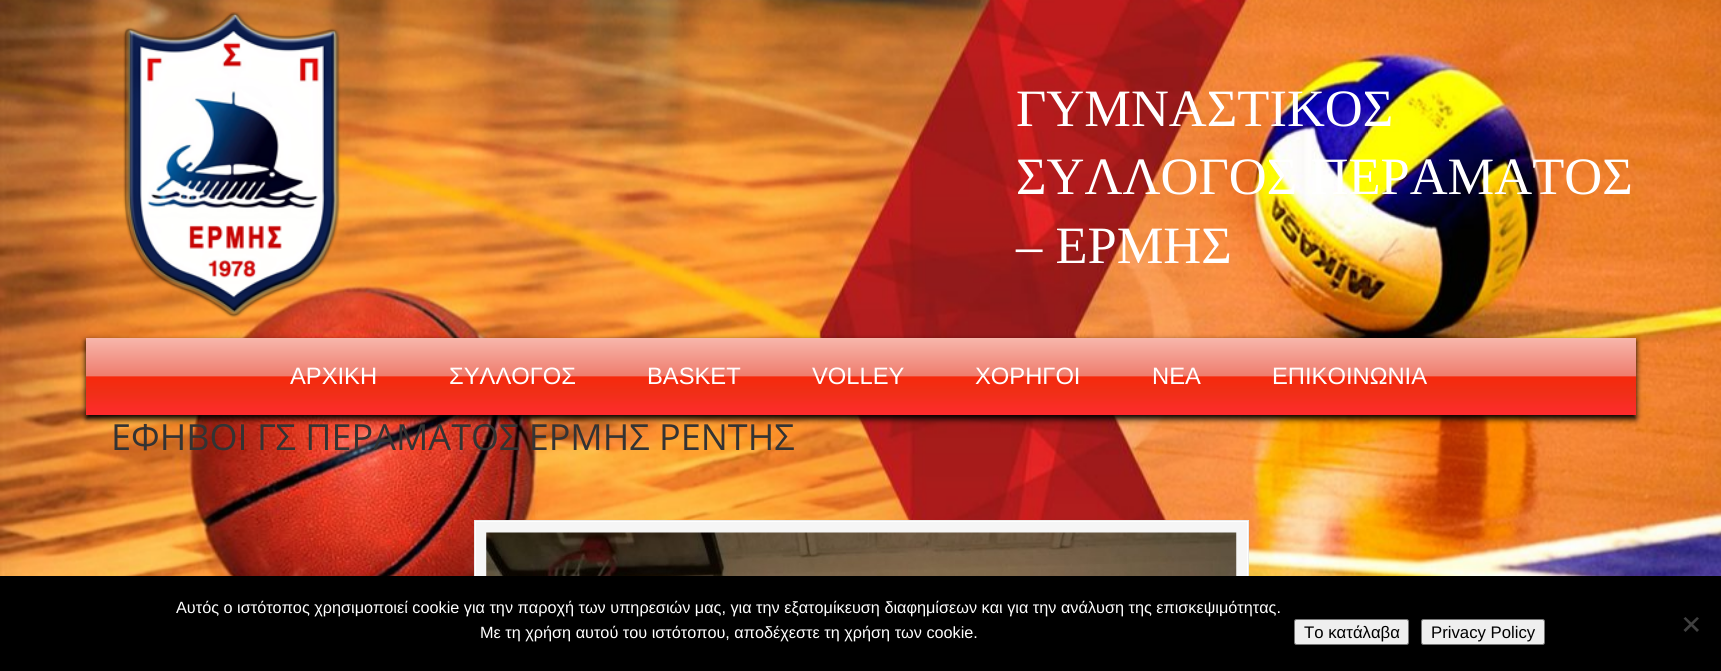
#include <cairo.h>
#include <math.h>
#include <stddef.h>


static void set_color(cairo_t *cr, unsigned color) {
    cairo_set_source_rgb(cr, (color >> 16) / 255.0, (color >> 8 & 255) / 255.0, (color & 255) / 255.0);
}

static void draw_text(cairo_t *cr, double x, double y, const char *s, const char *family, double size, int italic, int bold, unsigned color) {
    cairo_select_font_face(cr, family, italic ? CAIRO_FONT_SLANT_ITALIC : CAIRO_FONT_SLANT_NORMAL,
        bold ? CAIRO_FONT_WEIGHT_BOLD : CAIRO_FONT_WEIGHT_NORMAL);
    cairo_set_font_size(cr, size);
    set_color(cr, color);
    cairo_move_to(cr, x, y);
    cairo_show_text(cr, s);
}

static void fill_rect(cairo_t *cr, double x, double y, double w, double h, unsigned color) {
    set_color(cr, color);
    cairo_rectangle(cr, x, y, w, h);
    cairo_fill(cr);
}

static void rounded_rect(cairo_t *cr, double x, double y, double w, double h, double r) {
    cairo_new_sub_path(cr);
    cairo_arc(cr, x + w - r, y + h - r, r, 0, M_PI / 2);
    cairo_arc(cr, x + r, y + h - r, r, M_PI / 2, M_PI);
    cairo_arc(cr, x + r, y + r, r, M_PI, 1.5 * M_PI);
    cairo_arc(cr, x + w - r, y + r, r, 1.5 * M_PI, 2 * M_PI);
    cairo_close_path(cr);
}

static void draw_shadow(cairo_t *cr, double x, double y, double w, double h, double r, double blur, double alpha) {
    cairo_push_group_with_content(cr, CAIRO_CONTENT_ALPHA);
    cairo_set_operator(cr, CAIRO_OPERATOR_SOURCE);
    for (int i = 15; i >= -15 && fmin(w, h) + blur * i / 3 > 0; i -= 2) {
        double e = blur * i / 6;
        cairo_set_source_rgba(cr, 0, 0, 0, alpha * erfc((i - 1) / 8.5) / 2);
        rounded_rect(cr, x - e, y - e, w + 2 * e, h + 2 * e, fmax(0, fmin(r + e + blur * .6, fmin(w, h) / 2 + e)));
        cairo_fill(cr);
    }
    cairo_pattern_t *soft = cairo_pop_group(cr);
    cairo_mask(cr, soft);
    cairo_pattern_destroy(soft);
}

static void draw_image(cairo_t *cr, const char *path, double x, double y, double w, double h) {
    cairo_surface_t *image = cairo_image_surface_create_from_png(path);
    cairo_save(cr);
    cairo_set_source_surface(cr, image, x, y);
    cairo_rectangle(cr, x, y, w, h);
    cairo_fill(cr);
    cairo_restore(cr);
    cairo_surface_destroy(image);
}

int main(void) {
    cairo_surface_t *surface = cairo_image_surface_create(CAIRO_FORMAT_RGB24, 1721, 671);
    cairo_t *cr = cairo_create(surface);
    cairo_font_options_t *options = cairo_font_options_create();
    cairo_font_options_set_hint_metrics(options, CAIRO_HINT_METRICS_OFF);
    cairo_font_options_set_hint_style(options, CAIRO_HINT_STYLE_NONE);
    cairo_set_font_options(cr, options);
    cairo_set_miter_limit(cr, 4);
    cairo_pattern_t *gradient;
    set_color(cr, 0xFFFFFF);
    cairo_paint(cr);
    draw_image(cr, "assets/img1.png", 0, 0, 1721, 576);
    draw_image(cr, "assets/img2.png", 123, 12, 218, 306);
    draw_text(cr, 1016, 126, "ΓΥΜΝΑΣΤΙΚΟΣ", "Liberation Serif", 52.5, 0, 0, 0xFFFFFF);
    draw_text(cr, 1016, 194, "ΣΥΛΛΟΓΟΣ ΠΕΡΑΜΑΤΟΣ", "Liberation Serif", 52.5, 0, 0, 0xFFFFFF);
    draw_text(cr, 1016, 263, "– ΕΡΜΗΣ", "Liberation Serif", 52.5, 0, 0, 0xFFFFFF);
    set_color(cr, 0x000000);
    draw_shadow(cr, 86, 341, 1550, 78, 0, 3, 1);
    gradient = cairo_pattern_create_linear(861, 337, 861, 415);
    cairo_pattern_add_color_stop_rgba(gradient, 0, 0.969, 0.722, 0.678, 1);
    cairo_pattern_add_color_stop_rgba(gradient, 0.5, 0.937, 0.49, 0.431, 1);
    cairo_pattern_add_color_stop_rgba(gradient, 0.51, 0.965, 0.161, 0.047, 1);
    cairo_pattern_add_color_stop_rgba(gradient, 0.71, 0.941, 0.184, 0.09, 1);
    cairo_pattern_add_color_stop_rgba(gradient, 1, 1, 0.169, 0.18, 1);
    cairo_set_source(cr, gradient);
    cairo_pattern_destroy(gradient);
    cairo_rectangle(cr, 86, 338, 1550, 77);
    cairo_fill(cr);
    draw_text(cr, 290, 384, "ΑΡΧΙΚΗ", "Liberation Sans", 23.75, 0, 0, 0xFFFFFF);
    draw_text(cr, 449, 384, "ΣΥΛΛΟΓΟΣ", "Liberation Sans", 23.75, 0, 0, 0xFFFFFF);
    draw_text(cr, 647, 384, "BASKET", "Liberation Sans", 23.75, 0, 0, 0xFFFFFF);
    draw_text(cr, 812, 384, "VOLLEY", "Liberation Sans", 23.75, 0, 0, 0xFFFFFF);
    draw_text(cr, 975, 384, "ΧΟΡΗΓΟΙ", "Liberation Sans", 23.75, 0, 0, 0xFFFFFF);
    draw_text(cr, 1152, 384, "ΝΕΑ", "Liberation Sans", 23.75, 0, 0, 0xFFFFFF);
    draw_text(cr, 1272, 384, "ΕΠΙΚΟΙΝΩΝΙΑ", "Liberation Sans", 23.75, 0, 0, 0xFFFFFF);
    draw_text(cr, 111, 450, "ΕΦΗΒΟΙ ΓΣ ΠΕΡΑΜΑΤΟΣ ΕΡΜΗΣ ΡΕΝΤΗΣ", "Open Sans", 36, 0, 0, 0x333333);
    fill_rect(cr, 476, 522, 771, 54, 0xF6F6F6);
    cairo_rectangle(cr, 474.5, 520.5, 774, 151);
    set_color(cr, 0xEAEAEA);
    cairo_set_line_width(cr, 1);
    cairo_stroke(cr);
    cairo_rectangle(cr, 475.5, 521.5, 772, 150);
    set_color(cr, 0xFFFFFF);
    cairo_stroke(cr);
    draw_image(cr, "assets/img3.png", 486, 532, 751, 44);
    fill_rect(cr, 0, 576, 1721, 95, 0x000000);
    draw_text(cr, 176, 613, "Αυτός ο ιστότοπος χρησιμοποιεί cookie για την παροχή των υπηρεσιών μας, για την εξατομίκευση διαφημίσεων και για την ανάλυση της επισκεψιμότητας.", "Liberation Sans", 16.25, 0, 0, 0xFFFFFF);
    draw_text(cr, 480, 638, "Με τη χρήση αυτού του ιστότοπου, αποδέχεστε τη χρήση των cookie.", "Liberation Sans", 16.25, 0, 0, 0xFFFFFF);
    set_color(cr, 0xEFEFEF);
    rounded_rect(cr, 1294.5, 619.5, 114, 25, 2);
    cairo_fill_preserve(cr);
    set_color(cr, 0x767676);
    cairo_stroke(cr);
    draw_text(cr, 1304, 638, "Το κατάλαβα", "Liberation Sans", 16.75, 0, 0, 0x000000);
    set_color(cr, 0xEFEFEF);
    rounded_rect(cr, 1421.5, 619.5, 123, 25, 2);
    cairo_fill_preserve(cr);
    set_color(cr, 0x767676);
    cairo_stroke(cr);
    draw_text(cr, 1431, 638, "Privacy Policy", "Liberation Sans", 16.75, 0, 0, 0x000000);
    set_color(cr, 0x404040);
    cairo_new_path(cr);
    cairo_move_to(cr, 1697, 617);
    cairo_line_to(cr, 1699, 618.5);
    cairo_line_to(cr, 1685.5, 632);
    cairo_line_to(cr, 1683.5, 630);
    cairo_close_path(cr);
    cairo_fill(cr);
    cairo_new_path(cr);
    cairo_move_to(cr, 1683.5, 618.5);
    cairo_line_to(cr, 1685.5, 617);
    cairo_line_to(cr, 1699, 630);
    cairo_line_to(cr, 1697, 632);
    cairo_close_path(cr);
    cairo_fill(cr);
    cairo_surface_write_to_png(surface, "output.png");
    cairo_font_options_destroy(options);
    cairo_destroy(cr);
    cairo_surface_destroy(surface);
    return 0;
}
